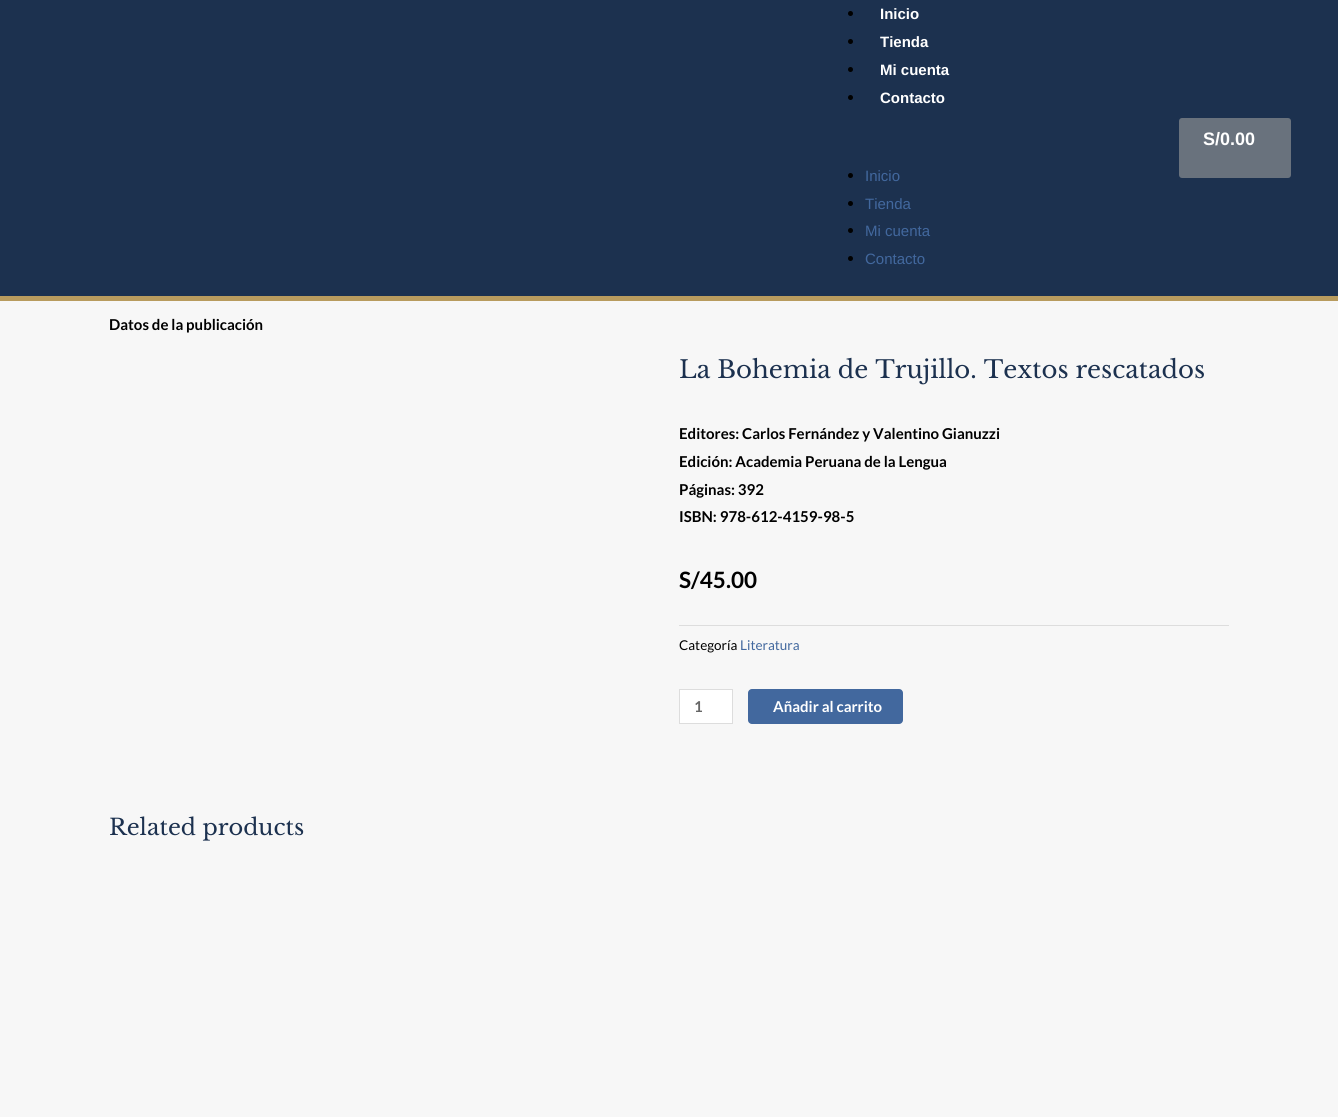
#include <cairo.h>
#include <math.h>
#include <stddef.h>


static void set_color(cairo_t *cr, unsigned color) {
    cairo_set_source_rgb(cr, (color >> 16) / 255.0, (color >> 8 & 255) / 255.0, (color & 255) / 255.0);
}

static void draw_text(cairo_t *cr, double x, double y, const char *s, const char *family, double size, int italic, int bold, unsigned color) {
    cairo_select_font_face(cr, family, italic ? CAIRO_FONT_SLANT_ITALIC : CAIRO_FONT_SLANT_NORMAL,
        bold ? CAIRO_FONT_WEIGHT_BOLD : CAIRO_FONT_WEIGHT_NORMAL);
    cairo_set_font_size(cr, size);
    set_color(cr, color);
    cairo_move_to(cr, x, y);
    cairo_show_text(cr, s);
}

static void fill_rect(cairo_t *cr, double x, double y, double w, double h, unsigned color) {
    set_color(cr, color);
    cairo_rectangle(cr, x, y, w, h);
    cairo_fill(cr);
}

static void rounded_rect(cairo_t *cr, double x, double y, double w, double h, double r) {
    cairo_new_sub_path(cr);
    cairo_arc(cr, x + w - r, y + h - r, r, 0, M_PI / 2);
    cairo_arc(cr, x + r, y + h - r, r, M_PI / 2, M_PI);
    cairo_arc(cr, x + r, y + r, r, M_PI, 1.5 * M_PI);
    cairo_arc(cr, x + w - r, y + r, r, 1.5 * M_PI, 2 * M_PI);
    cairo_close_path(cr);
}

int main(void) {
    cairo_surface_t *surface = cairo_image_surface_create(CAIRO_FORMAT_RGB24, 1338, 1117);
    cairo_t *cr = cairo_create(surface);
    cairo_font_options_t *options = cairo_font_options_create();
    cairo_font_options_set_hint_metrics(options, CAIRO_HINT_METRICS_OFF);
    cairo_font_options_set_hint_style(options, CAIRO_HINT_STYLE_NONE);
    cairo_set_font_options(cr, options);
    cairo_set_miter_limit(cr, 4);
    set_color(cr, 0xF7F7F7);
    cairo_paint(cr);
    fill_rect(cr, 0, 0, 1338, 296, 0x1C314F);
    fill_rect(cr, 0, 296, 1338, 5, 0xB89B5E);
    set_color(cr, 0x000000);
    cairo_arc(cr, 850.5, 13.5, 2.5, 0, 2 * M_PI);
    cairo_fill(cr);
    draw_text(cr, 880, 19, "Inicio", "Liberation Sans", 15, 0, 1, 0xFFFFFF);
    set_color(cr, 0x000000);
    cairo_new_path(cr);
    cairo_arc(cr, 850.5, 41.5, 2.5, 0, 2 * M_PI);
    cairo_fill(cr);
    draw_text(cr, 880, 47, "Tienda", "Liberation Sans", 15, 0, 1, 0xFFFFFF);
    set_color(cr, 0x000000);
    cairo_new_path(cr);
    cairo_arc(cr, 850.5, 69.5, 2.5, 0, 2 * M_PI);
    cairo_fill(cr);
    draw_text(cr, 880, 75, "Mi cuenta", "Liberation Sans", 15, 0, 1, 0xFFFFFF);
    set_color(cr, 0x000000);
    cairo_new_path(cr);
    cairo_arc(cr, 850.5, 97.5, 2.5, 0, 2 * M_PI);
    cairo_fill(cr);
    draw_text(cr, 880, 103, "Contacto", "Liberation Sans", 15, 0, 1, 0xFFFFFF);
    set_color(cr, 0x000000);
    cairo_new_path(cr);
    cairo_arc(cr, 850.5, 175.5, 2.5, 0, 2 * M_PI);
    cairo_fill(cr);
    draw_text(cr, 865, 181, "Inicio", "Liberation Sans", 15, 0, 0, 0x42689E);
    set_color(cr, 0x000000);
    cairo_new_path(cr);
    cairo_arc(cr, 850.5, 203.5, 2.5, 0, 2 * M_PI);
    cairo_fill(cr);
    draw_text(cr, 865, 209, "Tienda", "Liberation Sans", 15, 0, 0, 0x42689E);
    set_color(cr, 0x000000);
    cairo_new_path(cr);
    cairo_arc(cr, 850.5, 230.5, 2.5, 0, 2 * M_PI);
    cairo_fill(cr);
    draw_text(cr, 865, 236, "Mi cuenta", "Liberation Sans", 15, 0, 0, 0x42689E);
    set_color(cr, 0x000000);
    cairo_new_path(cr);
    cairo_arc(cr, 850.5, 258.5, 2.5, 0, 2 * M_PI);
    cairo_fill(cr);
    draw_text(cr, 865, 264, "Contacto", "Liberation Sans", 15, 0, 0, 0x42689E);
    set_color(cr, 0x69727D);
    rounded_rect(cr, 1179, 118, 112, 60, 3);
    cairo_fill(cr);
    draw_text(cr, 1203, 145, "S/0.00", "Liberation Sans", 18, 0, 1, 0xFFFFFF);
    draw_text(cr, 109, 330, "Datos de la publicación", "Lato", 15, 0, 1, 0x000000);
    draw_text(cr, 679, 378, "La Bohemia de Trujillo. Textos rescatados", "Libre Baskerville", 24.4, 0, 0, 0x1C314F);
    draw_text(cr, 679, 439, "Editores: Carlos Fernández y Valentino Gianuzzi", "Lato", 15, 0, 1, 0x000000);
    draw_text(cr, 679, 467, "Edición: Academia Peruana de la Lengua", "Lato", 15, 0, 1, 0x000000);
    draw_text(cr, 679, 495, "Páginas: 392", "Lato", 15, 0, 1, 0x000000);
    draw_text(cr, 679, 522, "ISBN: 978-612-4159-98-5", "Lato", 15, 0, 1, 0x000000);
    draw_text(cr, 679, 588, "S/45.00", "Lato", 22.5, 0, 1, 0x000000);
    fill_rect(cr, 679, 625, 550, 1, 0xDDDDDD);
    draw_text(cr, 679, 650, "Categoría", "Lato", 13.5, 0, 0, 0x000000);
    draw_text(cr, 740, 650, "Literatura", "Lato", 13.5, 0, 0, 0x42689E);
    set_color(cr, 0xFFFFFF);
    cairo_rectangle(cr, 679.5, 689.5, 53, 34);
    cairo_fill_preserve(cr);
    set_color(cr, 0xDDDDDD);
    cairo_set_line_width(cr, 1);
    cairo_stroke(cr);
    draw_text(cr, 694, 712, "1", "Lato", 15, 0, 1, 0x666666);
    set_color(cr, 0x42689E);
    rounded_rect(cr, 748, 689, 155, 35, 4);
    cairo_fill(cr);
    draw_text(cr, 773, 712, "Añadir al carrito", "Lato", 15, 0, 1, 0xFFFFFF);
    draw_text(cr, 109, 835, "Related products", "Libre Baskerville", 22.5, 0, 0, 0x1C314F);
    cairo_surface_write_to_png(surface, "output.png");
    cairo_font_options_destroy(options);
    cairo_destroy(cr);
    cairo_surface_destroy(surface);
    return 0;
}
